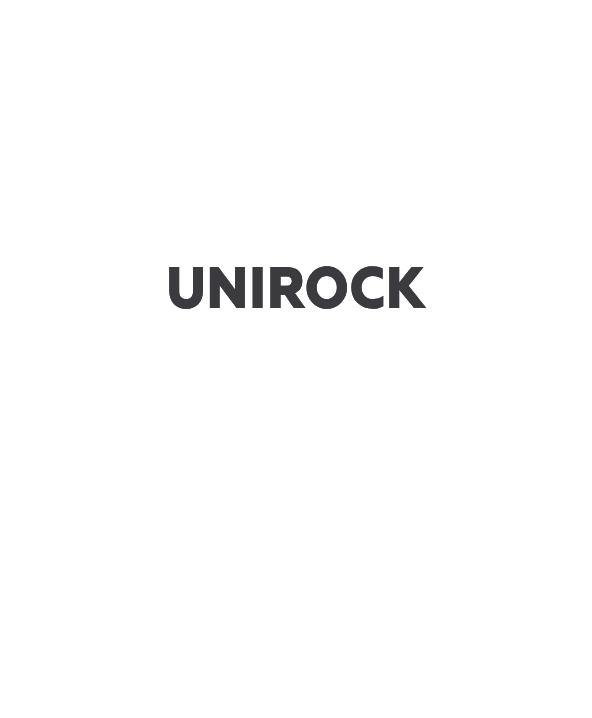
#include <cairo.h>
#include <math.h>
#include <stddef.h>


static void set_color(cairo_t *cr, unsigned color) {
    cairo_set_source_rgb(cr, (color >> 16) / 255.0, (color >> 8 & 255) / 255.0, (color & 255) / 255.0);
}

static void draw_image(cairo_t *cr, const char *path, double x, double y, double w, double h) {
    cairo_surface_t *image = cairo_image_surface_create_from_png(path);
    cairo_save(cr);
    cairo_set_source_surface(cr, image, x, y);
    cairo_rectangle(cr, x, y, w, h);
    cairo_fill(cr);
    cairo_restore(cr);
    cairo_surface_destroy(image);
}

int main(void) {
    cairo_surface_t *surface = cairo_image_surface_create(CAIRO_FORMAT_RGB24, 592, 718);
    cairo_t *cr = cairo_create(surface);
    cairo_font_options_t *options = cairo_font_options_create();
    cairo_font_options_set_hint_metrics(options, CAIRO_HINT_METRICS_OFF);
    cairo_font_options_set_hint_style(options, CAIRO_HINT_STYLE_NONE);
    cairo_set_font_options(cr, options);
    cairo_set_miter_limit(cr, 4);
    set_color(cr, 0xFFFFFF);
    cairo_paint(cr);
    draw_image(cr, "assets/img1.png", 169, 266, 257, 43);
    cairo_surface_write_to_png(surface, "output.png");
    cairo_font_options_destroy(options);
    cairo_destroy(cr);
    cairo_surface_destroy(surface);
    return 0;
}
